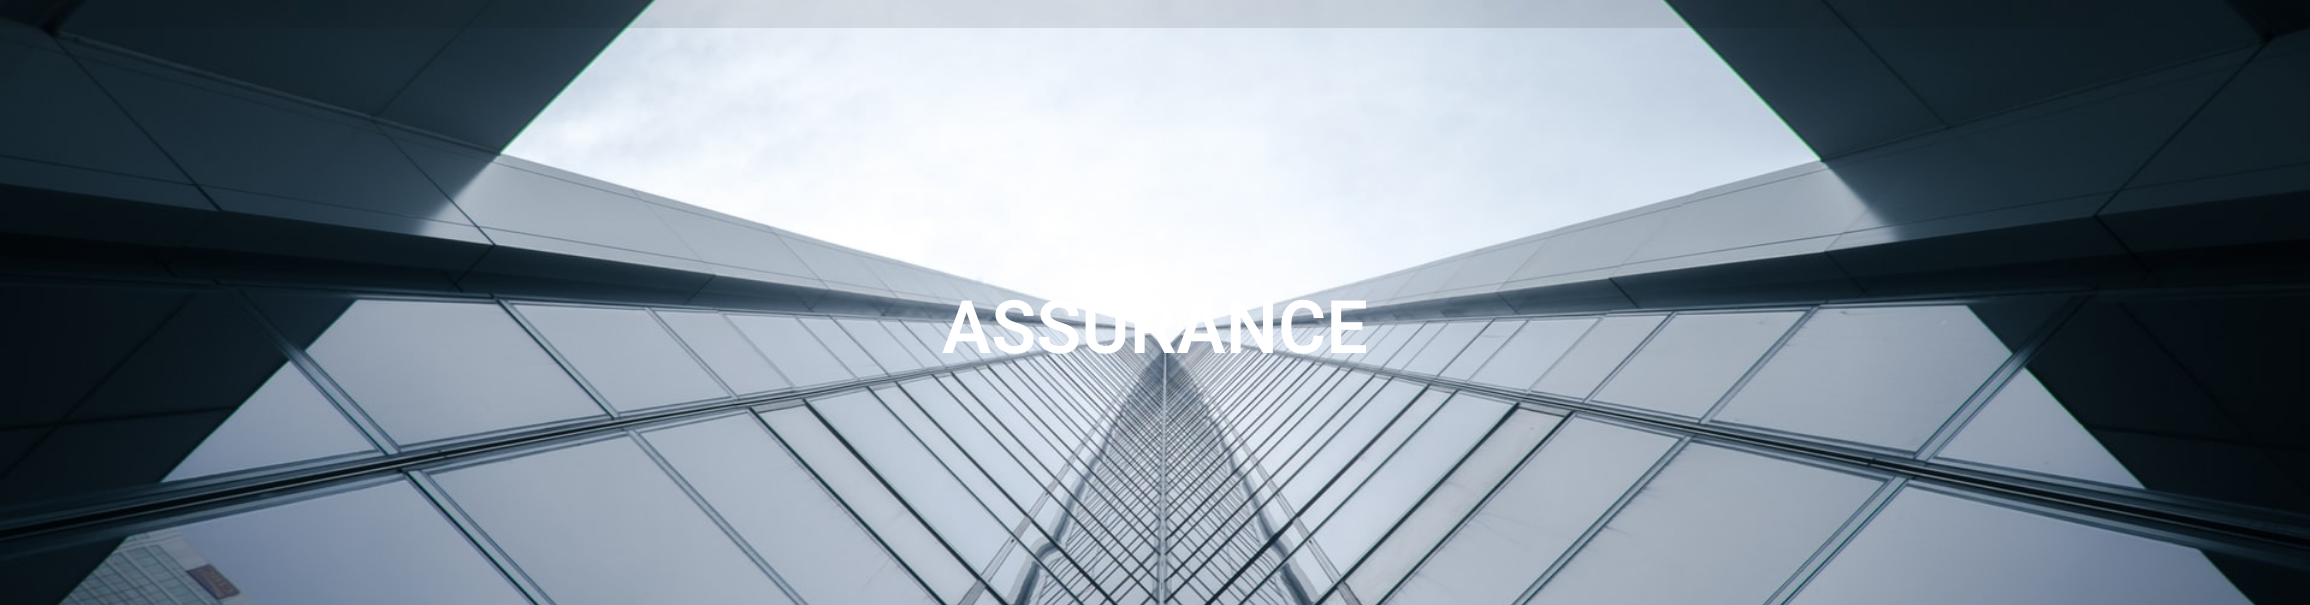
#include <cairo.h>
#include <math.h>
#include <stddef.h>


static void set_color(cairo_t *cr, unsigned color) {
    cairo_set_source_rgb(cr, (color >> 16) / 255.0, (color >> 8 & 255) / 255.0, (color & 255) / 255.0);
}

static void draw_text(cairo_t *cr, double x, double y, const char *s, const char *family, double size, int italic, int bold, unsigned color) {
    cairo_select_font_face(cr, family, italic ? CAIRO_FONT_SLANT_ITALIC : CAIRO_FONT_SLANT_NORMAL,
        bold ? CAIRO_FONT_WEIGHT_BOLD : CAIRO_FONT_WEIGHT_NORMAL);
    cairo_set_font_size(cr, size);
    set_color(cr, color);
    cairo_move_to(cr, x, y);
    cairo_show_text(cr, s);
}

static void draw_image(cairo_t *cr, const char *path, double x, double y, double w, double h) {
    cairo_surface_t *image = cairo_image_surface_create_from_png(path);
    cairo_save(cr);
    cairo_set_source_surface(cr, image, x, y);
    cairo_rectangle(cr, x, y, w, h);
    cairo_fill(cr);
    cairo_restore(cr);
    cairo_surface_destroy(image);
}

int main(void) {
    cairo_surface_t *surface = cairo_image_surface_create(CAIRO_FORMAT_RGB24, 2310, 605);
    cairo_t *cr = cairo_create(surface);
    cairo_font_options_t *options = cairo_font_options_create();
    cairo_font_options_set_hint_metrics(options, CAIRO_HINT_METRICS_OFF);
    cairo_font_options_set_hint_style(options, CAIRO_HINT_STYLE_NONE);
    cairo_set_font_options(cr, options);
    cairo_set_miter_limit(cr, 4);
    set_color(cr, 0xFFFFFF);
    cairo_paint(cr);
    draw_image(cr, "assets/img1.png", 0, 0, 2310, 605);
    cairo_set_source_rgba(cr, 0.039, 0.039, 0.039, 0.1);
    cairo_rectangle(cr, 0, 0, 2107, 28);
    cairo_fill(cr);
    draw_text(cr, 942, 353, "ASSURANCE", "Roboto SemiBold", 73.75, 0, 0, 0xFFFFFF);
    cairo_surface_write_to_png(surface, "output.png");
    cairo_font_options_destroy(options);
    cairo_destroy(cr);
    cairo_surface_destroy(surface);
    return 0;
}
